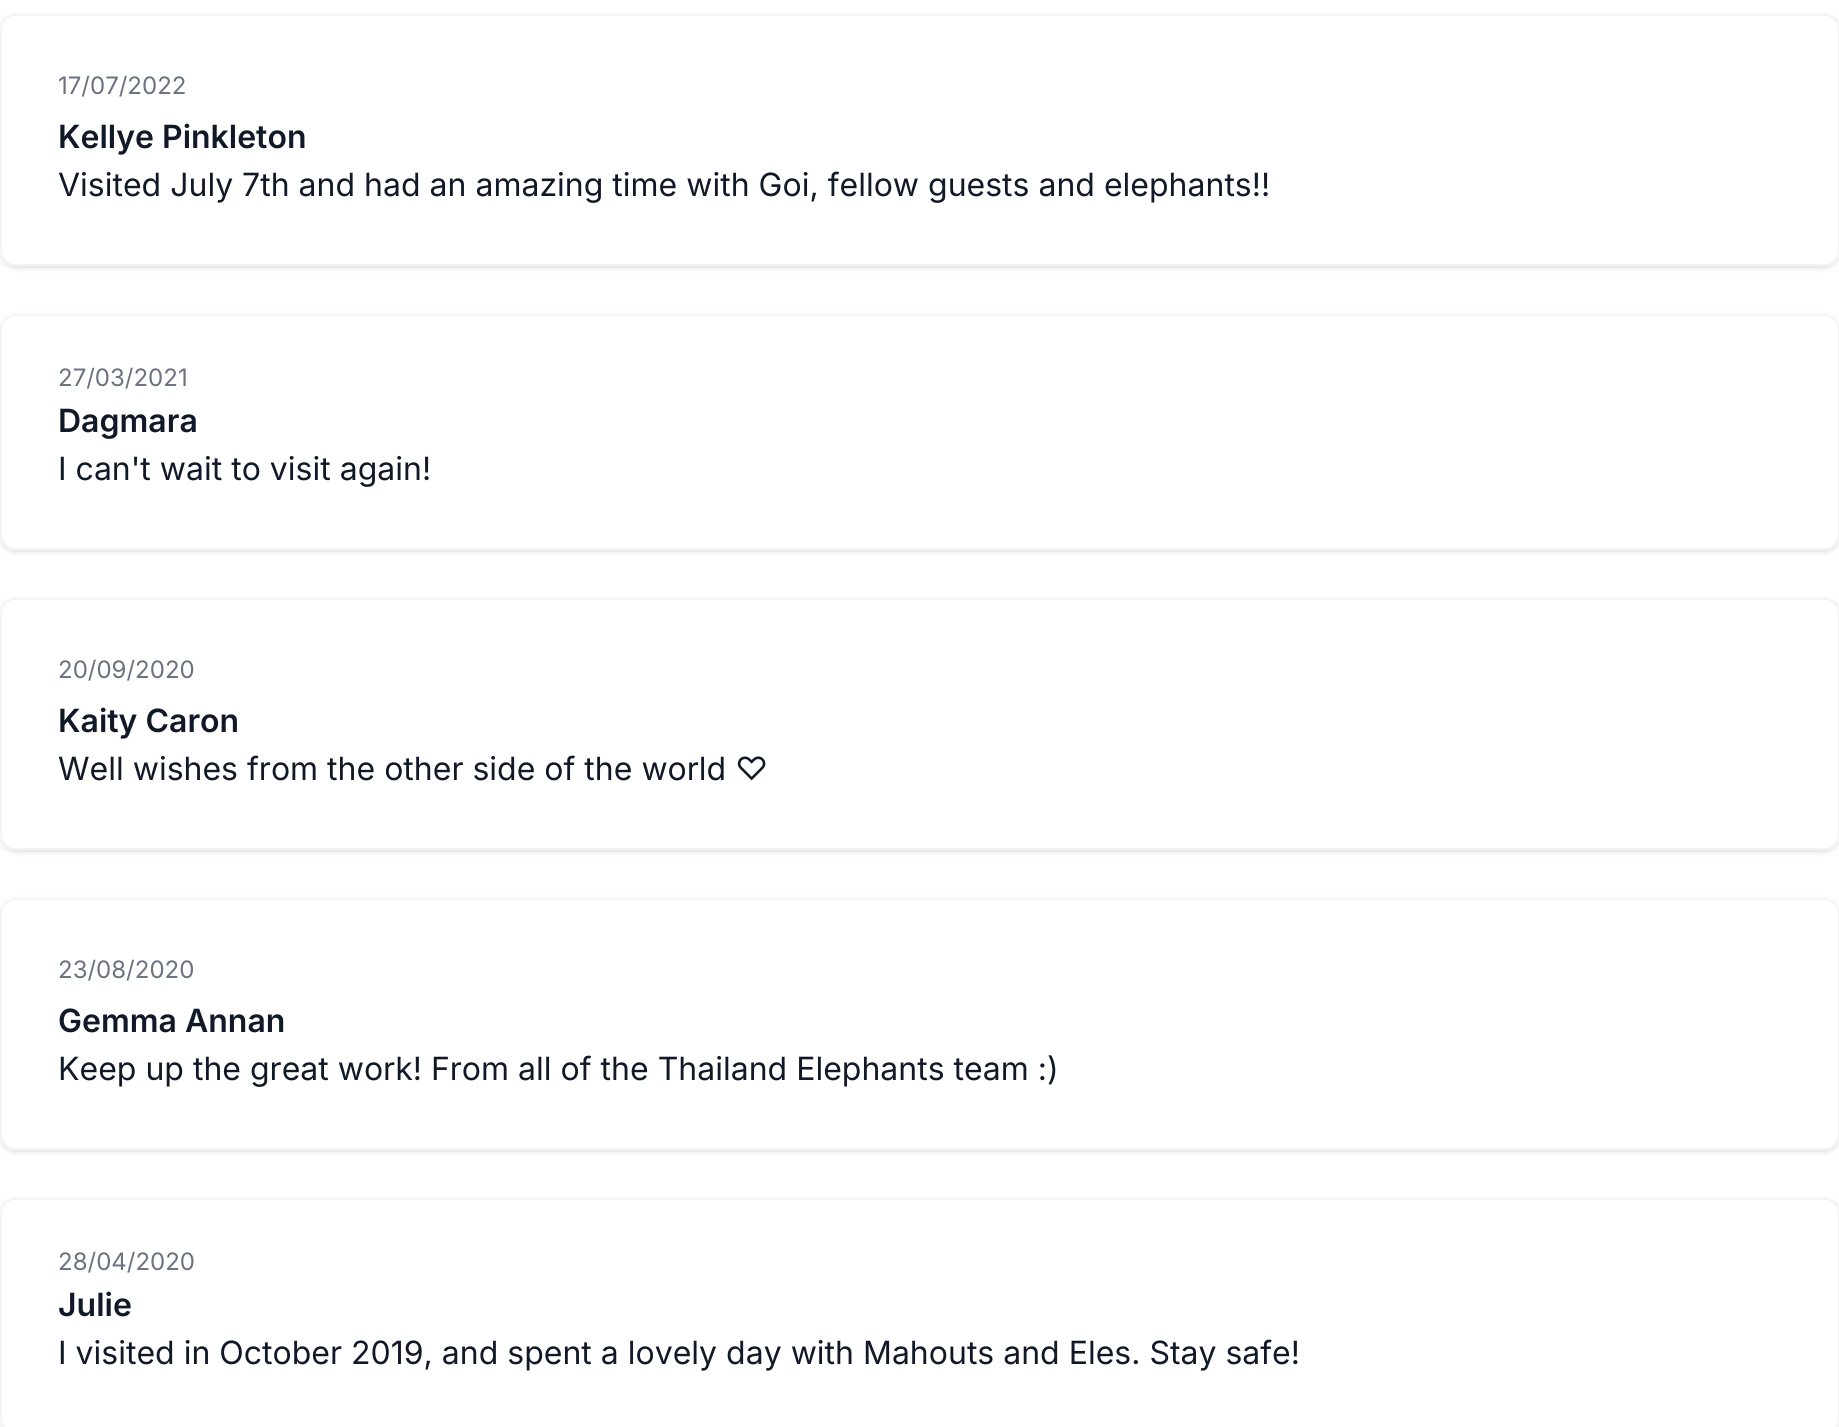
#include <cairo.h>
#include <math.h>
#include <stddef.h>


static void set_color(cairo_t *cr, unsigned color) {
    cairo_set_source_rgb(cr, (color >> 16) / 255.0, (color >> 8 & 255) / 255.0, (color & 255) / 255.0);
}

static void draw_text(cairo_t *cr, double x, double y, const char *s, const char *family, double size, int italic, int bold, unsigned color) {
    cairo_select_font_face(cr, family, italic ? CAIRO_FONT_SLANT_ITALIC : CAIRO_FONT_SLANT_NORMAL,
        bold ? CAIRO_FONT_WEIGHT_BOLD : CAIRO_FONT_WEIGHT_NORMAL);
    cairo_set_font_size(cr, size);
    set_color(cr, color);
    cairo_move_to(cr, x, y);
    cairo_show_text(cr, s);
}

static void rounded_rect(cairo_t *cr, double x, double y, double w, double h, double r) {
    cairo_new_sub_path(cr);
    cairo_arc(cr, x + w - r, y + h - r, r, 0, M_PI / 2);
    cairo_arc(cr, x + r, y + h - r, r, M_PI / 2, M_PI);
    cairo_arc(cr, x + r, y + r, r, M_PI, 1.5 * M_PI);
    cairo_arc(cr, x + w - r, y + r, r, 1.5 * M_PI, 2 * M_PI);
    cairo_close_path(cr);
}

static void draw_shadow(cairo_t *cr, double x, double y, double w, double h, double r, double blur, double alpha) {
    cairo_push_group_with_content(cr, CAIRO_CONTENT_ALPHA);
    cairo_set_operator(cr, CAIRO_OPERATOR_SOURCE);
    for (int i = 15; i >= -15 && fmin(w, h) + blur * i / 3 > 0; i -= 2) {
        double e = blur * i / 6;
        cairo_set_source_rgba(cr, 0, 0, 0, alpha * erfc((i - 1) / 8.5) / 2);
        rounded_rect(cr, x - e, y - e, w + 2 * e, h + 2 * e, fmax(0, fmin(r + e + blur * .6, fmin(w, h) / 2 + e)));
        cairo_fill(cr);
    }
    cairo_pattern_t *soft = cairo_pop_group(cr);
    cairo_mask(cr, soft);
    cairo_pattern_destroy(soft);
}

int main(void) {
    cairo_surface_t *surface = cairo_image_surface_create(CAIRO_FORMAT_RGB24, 1839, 1427);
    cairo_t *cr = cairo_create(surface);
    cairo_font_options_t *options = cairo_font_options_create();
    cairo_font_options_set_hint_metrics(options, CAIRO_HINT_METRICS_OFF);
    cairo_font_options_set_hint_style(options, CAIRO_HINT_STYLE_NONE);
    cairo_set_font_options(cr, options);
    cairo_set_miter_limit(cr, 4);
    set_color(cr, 0xFFFFFF);
    cairo_paint(cr);
    cairo_save(cr);
    cairo_set_fill_rule(cr, CAIRO_FILL_RULE_EVEN_ODD);
    cairo_new_path(cr);
    cairo_move_to(cr, 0, 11);
    cairo_line_to(cr, 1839, 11);
    cairo_line_to(cr, 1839, 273);
    cairo_line_to(cr, 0, 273);
    cairo_close_path(cr);
    cairo_move_to(cr, 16, 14);
    cairo_line_to(cr, 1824, 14);
    cairo_curve_to(cr, 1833, 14, 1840, 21, 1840, 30);
    cairo_line_to(cr, 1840, 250);
    cairo_curve_to(cr, 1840, 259, 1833, 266, 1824, 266);
    cairo_line_to(cr, 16, 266);
    cairo_curve_to(cr, 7, 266, 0, 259, 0, 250);
    cairo_line_to(cr, 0, 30);
    cairo_curve_to(cr, 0, 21, 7, 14, 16, 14);
    cairo_close_path(cr);
    cairo_clip(cr);
    set_color(cr, 0x000000);
    draw_shadow(cr, 2, 18, 1836, 248, 14, 2, 0.1);
    cairo_restore(cr);
    cairo_save(cr);
    cairo_set_fill_rule(cr, CAIRO_FILL_RULE_EVEN_ODD);
    cairo_new_path(cr);
    cairo_move_to(cr, 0, 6);
    cairo_line_to(cr, 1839, 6);
    cairo_line_to(cr, 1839, 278);
    cairo_line_to(cr, 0, 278);
    cairo_close_path(cr);
    cairo_move_to(cr, 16, 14);
    cairo_line_to(cr, 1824, 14);
    cairo_curve_to(cr, 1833, 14, 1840, 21, 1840, 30);
    cairo_line_to(cr, 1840, 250);
    cairo_curve_to(cr, 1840, 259, 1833, 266, 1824, 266);
    cairo_line_to(cr, 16, 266);
    cairo_curve_to(cr, 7, 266, 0, 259, 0, 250);
    cairo_line_to(cr, 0, 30);
    cairo_curve_to(cr, 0, 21, 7, 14, 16, 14);
    cairo_close_path(cr);
    cairo_clip(cr);
    set_color(cr, 0x000000);
    draw_shadow(cr, 0, 16, 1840, 252, 16, 3, 0.1);
    cairo_restore(cr);
    rounded_rect(cr, 1, 15, 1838, 250, 15);
    set_color(cr, 0xF3F4F6);
    cairo_stroke(cr);
    draw_text(cr, 58, 94, "17/07/2022", "Inter", 24, 0, 0, 0x6B7280);
    draw_text(cr, 58, 148, "Kellye Pinkleton", "Inter SemiBold", 32, 0, 0, 0x111928);
    draw_text(cr, 58, 196, "Visited July 7th and had an amazing time with Goi, fellow guests and elephants!!", "Inter", 32, 0, 0, 0x111928);
    cairo_save(cr);
    cairo_set_fill_rule(cr, CAIRO_FILL_RULE_EVEN_ODD);
    cairo_new_path(cr);
    cairo_move_to(cr, 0, 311);
    cairo_line_to(cr, 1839, 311);
    cairo_line_to(cr, 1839, 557);
    cairo_line_to(cr, 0, 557);
    cairo_close_path(cr);
    cairo_move_to(cr, 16, 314);
    cairo_line_to(cr, 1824, 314);
    cairo_curve_to(cr, 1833, 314, 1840, 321, 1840, 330);
    cairo_line_to(cr, 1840, 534);
    cairo_curve_to(cr, 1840, 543, 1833, 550, 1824, 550);
    cairo_line_to(cr, 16, 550);
    cairo_curve_to(cr, 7, 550, 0, 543, 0, 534);
    cairo_line_to(cr, 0, 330);
    cairo_curve_to(cr, 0, 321, 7, 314, 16, 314);
    cairo_close_path(cr);
    cairo_clip(cr);
    set_color(cr, 0x000000);
    draw_shadow(cr, 2, 318, 1836, 232, 14, 2, 0.1);
    cairo_restore(cr);
    cairo_save(cr);
    cairo_set_fill_rule(cr, CAIRO_FILL_RULE_EVEN_ODD);
    cairo_new_path(cr);
    cairo_move_to(cr, 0, 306);
    cairo_line_to(cr, 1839, 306);
    cairo_line_to(cr, 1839, 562);
    cairo_line_to(cr, 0, 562);
    cairo_close_path(cr);
    cairo_move_to(cr, 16, 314);
    cairo_line_to(cr, 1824, 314);
    cairo_curve_to(cr, 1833, 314, 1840, 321, 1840, 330);
    cairo_line_to(cr, 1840, 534);
    cairo_curve_to(cr, 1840, 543, 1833, 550, 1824, 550);
    cairo_line_to(cr, 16, 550);
    cairo_curve_to(cr, 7, 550, 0, 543, 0, 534);
    cairo_line_to(cr, 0, 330);
    cairo_curve_to(cr, 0, 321, 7, 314, 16, 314);
    cairo_close_path(cr);
    cairo_clip(cr);
    set_color(cr, 0x000000);
    draw_shadow(cr, 0, 316, 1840, 236, 16, 3, 0.1);
    cairo_restore(cr);
    rounded_rect(cr, 1, 315, 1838, 234, 15);
    set_color(cr, 0xF3F4F6);
    cairo_stroke(cr);
    draw_text(cr, 58, 386, "27/03/2021", "Inter", 24, 0, 0, 0x6B7280);
    draw_text(cr, 58, 432, "Dagmara", "Inter SemiBold", 32, 0, 0, 0x111928);
    draw_text(cr, 58, 480, "I can't wait to visit again!", "Inter", 32, 0, 0, 0x111928);
    cairo_save(cr);
    cairo_set_fill_rule(cr, CAIRO_FILL_RULE_EVEN_ODD);
    cairo_new_path(cr);
    cairo_move_to(cr, 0, 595);
    cairo_line_to(cr, 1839, 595);
    cairo_line_to(cr, 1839, 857);
    cairo_line_to(cr, 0, 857);
    cairo_close_path(cr);
    cairo_move_to(cr, 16, 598);
    cairo_line_to(cr, 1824, 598);
    cairo_curve_to(cr, 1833, 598, 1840, 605, 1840, 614);
    cairo_line_to(cr, 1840, 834);
    cairo_curve_to(cr, 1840, 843, 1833, 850, 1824, 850);
    cairo_line_to(cr, 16, 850);
    cairo_curve_to(cr, 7, 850, 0, 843, 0, 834);
    cairo_line_to(cr, 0, 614);
    cairo_curve_to(cr, 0, 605, 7, 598, 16, 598);
    cairo_close_path(cr);
    cairo_clip(cr);
    set_color(cr, 0x000000);
    draw_shadow(cr, 2, 602, 1836, 248, 14, 2, 0.1);
    cairo_restore(cr);
    cairo_save(cr);
    cairo_set_fill_rule(cr, CAIRO_FILL_RULE_EVEN_ODD);
    cairo_new_path(cr);
    cairo_move_to(cr, 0, 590);
    cairo_line_to(cr, 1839, 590);
    cairo_line_to(cr, 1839, 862);
    cairo_line_to(cr, 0, 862);
    cairo_close_path(cr);
    cairo_move_to(cr, 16, 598);
    cairo_line_to(cr, 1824, 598);
    cairo_curve_to(cr, 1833, 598, 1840, 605, 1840, 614);
    cairo_line_to(cr, 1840, 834);
    cairo_curve_to(cr, 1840, 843, 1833, 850, 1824, 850);
    cairo_line_to(cr, 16, 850);
    cairo_curve_to(cr, 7, 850, 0, 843, 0, 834);
    cairo_line_to(cr, 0, 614);
    cairo_curve_to(cr, 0, 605, 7, 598, 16, 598);
    cairo_close_path(cr);
    cairo_clip(cr);
    set_color(cr, 0x000000);
    draw_shadow(cr, 0, 600, 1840, 252, 16, 3, 0.1);
    cairo_restore(cr);
    rounded_rect(cr, 1, 599, 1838, 250, 15);
    set_color(cr, 0xF3F4F6);
    cairo_stroke(cr);
    draw_text(cr, 58, 678, "20/09/2020", "Inter", 24, 0, 0, 0x6B7280);
    draw_text(cr, 58, 732, "Kaity Caron", "Inter SemiBold", 32, 0, 0, 0x111928);
    draw_text(cr, 58, 780, "Well wishes from the other side of the world ♡", "Inter", 32, 0, 0, 0x111928);
    cairo_save(cr);
    cairo_set_fill_rule(cr, CAIRO_FILL_RULE_EVEN_ODD);
    cairo_new_path(cr);
    cairo_move_to(cr, 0, 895);
    cairo_line_to(cr, 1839, 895);
    cairo_line_to(cr, 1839, 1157);
    cairo_line_to(cr, 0, 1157);
    cairo_close_path(cr);
    cairo_move_to(cr, 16, 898);
    cairo_line_to(cr, 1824, 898);
    cairo_curve_to(cr, 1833, 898, 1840, 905, 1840, 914);
    cairo_line_to(cr, 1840, 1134);
    cairo_curve_to(cr, 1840, 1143, 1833, 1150, 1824, 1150);
    cairo_line_to(cr, 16, 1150);
    cairo_curve_to(cr, 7, 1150, 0, 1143, 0, 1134);
    cairo_line_to(cr, 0, 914);
    cairo_curve_to(cr, 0, 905, 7, 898, 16, 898);
    cairo_close_path(cr);
    cairo_clip(cr);
    set_color(cr, 0x000000);
    draw_shadow(cr, 2, 902, 1836, 248, 14, 2, 0.1);
    cairo_restore(cr);
    cairo_save(cr);
    cairo_set_fill_rule(cr, CAIRO_FILL_RULE_EVEN_ODD);
    cairo_new_path(cr);
    cairo_move_to(cr, 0, 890);
    cairo_line_to(cr, 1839, 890);
    cairo_line_to(cr, 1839, 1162);
    cairo_line_to(cr, 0, 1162);
    cairo_close_path(cr);
    cairo_move_to(cr, 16, 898);
    cairo_line_to(cr, 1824, 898);
    cairo_curve_to(cr, 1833, 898, 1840, 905, 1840, 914);
    cairo_line_to(cr, 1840, 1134);
    cairo_curve_to(cr, 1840, 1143, 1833, 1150, 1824, 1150);
    cairo_line_to(cr, 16, 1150);
    cairo_curve_to(cr, 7, 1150, 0, 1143, 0, 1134);
    cairo_line_to(cr, 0, 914);
    cairo_curve_to(cr, 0, 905, 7, 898, 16, 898);
    cairo_close_path(cr);
    cairo_clip(cr);
    set_color(cr, 0x000000);
    draw_shadow(cr, 0, 900, 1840, 252, 16, 3, 0.1);
    cairo_restore(cr);
    rounded_rect(cr, 1, 899, 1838, 250, 15);
    set_color(cr, 0xF3F4F6);
    cairo_stroke(cr);
    draw_text(cr, 58, 978, "23/08/2020", "Inter", 24, 0, 0, 0x6B7280);
    draw_text(cr, 58, 1032, "Gemma Annan", "Inter SemiBold", 32, 0, 0, 0x111928);
    draw_text(cr, 58, 1080, "Keep up the great work! From all of the Thailand Elephants team :)", "Inter", 32, 0, 0, 0x111928);
    cairo_save(cr);
    cairo_set_fill_rule(cr, CAIRO_FILL_RULE_EVEN_ODD);
    cairo_new_path(cr);
    cairo_move_to(cr, 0, 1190);
    cairo_line_to(cr, 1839, 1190);
    cairo_line_to(cr, 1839, 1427);
    cairo_line_to(cr, 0, 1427);
    cairo_close_path(cr);
    cairo_move_to(cr, 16, 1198);
    cairo_line_to(cr, 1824, 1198);
    cairo_curve_to(cr, 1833, 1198, 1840, 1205, 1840, 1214);
    cairo_line_to(cr, 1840, 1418);
    cairo_curve_to(cr, 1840, 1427, 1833, 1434, 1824, 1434);
    cairo_line_to(cr, 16, 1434);
    cairo_curve_to(cr, 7, 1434, 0, 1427, 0, 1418);
    cairo_line_to(cr, 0, 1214);
    cairo_curve_to(cr, 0, 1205, 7, 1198, 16, 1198);
    cairo_close_path(cr);
    cairo_clip(cr);
    set_color(cr, 0x000000);
    draw_shadow(cr, 0, 1200, 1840, 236, 16, 3, 0.1);
    cairo_restore(cr);
    rounded_rect(cr, 1, 1199, 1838, 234, 15);
    set_color(cr, 0xF3F4F6);
    cairo_stroke(cr);
    draw_text(cr, 58, 1270, "28/04/2020", "Inter", 24, 0, 0, 0x6B7280);
    draw_text(cr, 58, 1316, "Julie", "Inter SemiBold", 32, 0, 0, 0x111928);
    draw_text(cr, 58, 1364, "I visited in October 2019, and spent a lovely day with Mahouts and Eles. Stay safe!", "Inter", 32, 0, 0, 0x111928);
    cairo_surface_write_to_png(surface, "output.png");
    cairo_font_options_destroy(options);
    cairo_destroy(cr);
    cairo_surface_destroy(surface);
    return 0;
}
